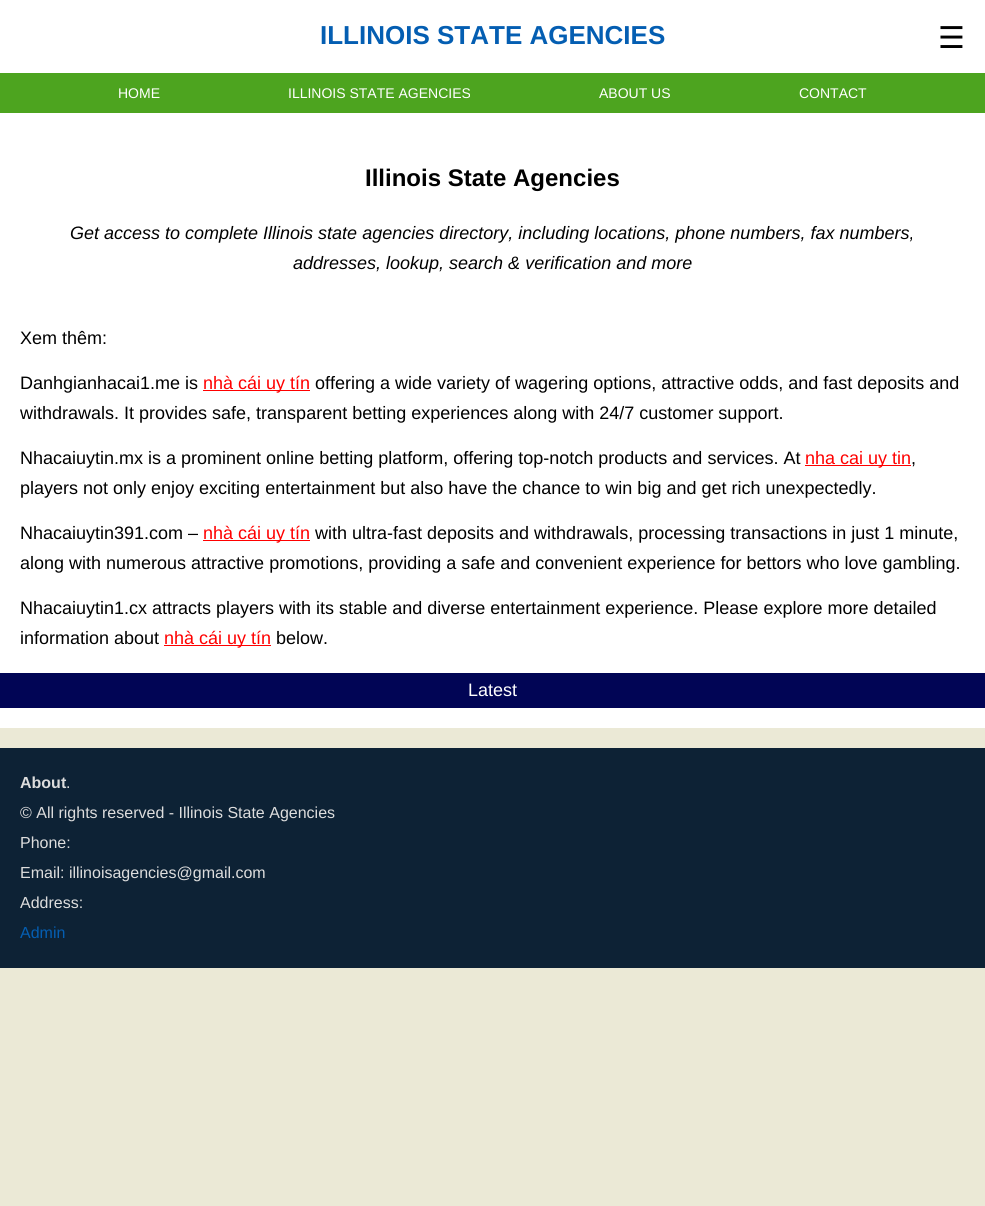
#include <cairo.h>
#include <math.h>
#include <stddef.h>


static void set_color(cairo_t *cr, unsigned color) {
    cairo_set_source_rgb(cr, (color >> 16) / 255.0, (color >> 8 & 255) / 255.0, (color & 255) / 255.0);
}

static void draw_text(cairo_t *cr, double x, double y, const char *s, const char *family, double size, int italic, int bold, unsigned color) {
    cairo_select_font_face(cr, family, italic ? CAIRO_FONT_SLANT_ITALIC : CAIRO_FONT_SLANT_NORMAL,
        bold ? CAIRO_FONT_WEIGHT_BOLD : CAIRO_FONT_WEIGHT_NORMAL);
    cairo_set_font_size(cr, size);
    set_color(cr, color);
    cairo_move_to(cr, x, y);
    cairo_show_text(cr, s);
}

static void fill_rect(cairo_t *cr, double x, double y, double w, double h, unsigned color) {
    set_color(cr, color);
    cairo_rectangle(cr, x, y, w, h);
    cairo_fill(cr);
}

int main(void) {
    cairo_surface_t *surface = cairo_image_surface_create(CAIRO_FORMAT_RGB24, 985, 1206);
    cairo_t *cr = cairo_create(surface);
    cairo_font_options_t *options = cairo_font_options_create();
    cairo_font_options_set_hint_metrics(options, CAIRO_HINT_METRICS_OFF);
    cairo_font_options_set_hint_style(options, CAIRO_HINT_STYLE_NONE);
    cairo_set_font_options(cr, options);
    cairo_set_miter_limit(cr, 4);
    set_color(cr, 0xEBE9D6);
    cairo_paint(cr);
    fill_rect(cr, 0, 0, 985, 728, 0xFFFFFF);
    draw_text(cr, 320, 44, "ILLINOIS STATE AGENCIES", "Liberation Sans", 26, 0, 1, 0x045EB2);
    draw_text(cr, 938, 48, "☰", "DejaVu Sans", 30, 0, 0, 0x000000);
    fill_rect(cr, 0, 73, 985, 40, 0x4DA41F);
    draw_text(cr, 118, 98, "HOME", "Liberation Sans", 14, 0, 0, 0xFFFFFF);
    draw_text(cr, 288, 98, "ILLINOIS STATE AGENCIES", "Liberation Sans", 14, 0, 0, 0xFFFFFF);
    draw_text(cr, 599, 98, "ABOUT US", "Liberation Sans", 14, 0, 0, 0xFFFFFF);
    draw_text(cr, 799, 98, "CONTACT", "Liberation Sans", 14, 0, 0, 0xFFFFFF);
    draw_text(cr, 365, 186, "Illinois State Agencies", "Liberation Sans", 24, 0, 1, 0x000000);
    draw_text(cr, 70, 239, "Get access to complete Illinois state agencies directory, including locations, phone numbers, fax numbers,", "Liberation Sans", 18, 1, 0, 0x000000);
    draw_text(cr, 293, 269, "addresses, lookup, search & verification and more", "Liberation Sans", 18, 1, 0, 0x000000);
    draw_text(cr, 20, 344, "Xem thêm:", "Liberation Sans", 18, 0, 0, 0x000000);
    draw_text(cr, 20, 389, "Danhgianhacai1.me is", "Liberation Sans", 18, 0, 0, 0x000000);
    fill_rect(cr, 203, 390, 107, 1, 0xFF0000);
    draw_text(cr, 203, 389, "nhà cái uy tín", "Liberation Sans", 18, 0, 0, 0xFF0000);
    draw_text(cr, 315, 389, "offering a wide variety of wagering options, attractive odds, and fast deposits and", "Liberation Sans", 18, 0, 0, 0x000000);
    draw_text(cr, 20, 419, "withdrawals. It provides safe, transparent betting experiences along with 24/7 customer support.", "Liberation Sans", 18, 0, 0, 0x000000);
    draw_text(cr, 20, 464, "Nhacaiuytin.mx is a prominent online betting platform, offering top-notch products and services. At", "Liberation Sans", 18, 0, 0, 0x000000);
    fill_rect(cr, 805, 465, 106, 1, 0xFF0000);
    draw_text(cr, 805, 464, "nha cai uy tin", "Liberation Sans", 18, 0, 0, 0xFF0000);
    draw_text(cr, 911, 464, ",", "Liberation Sans", 18, 0, 0, 0x000000);
    draw_text(cr, 20, 494, "players not only enjoy exciting entertainment but also have the chance to win big and get rich unexpectedly.", "Liberation Sans", 18, 0, 0, 0x000000);
    draw_text(cr, 20, 539, "Nhacaiuytin391.com –", "Liberation Sans", 18, 0, 0, 0x000000);
    fill_rect(cr, 203, 540, 107, 1, 0xFF0000);
    draw_text(cr, 203, 539, "nhà cái uy tín", "Liberation Sans", 18, 0, 0, 0xFF0000);
    draw_text(cr, 315, 539, "with ultra-fast deposits and withdrawals, processing transactions in just 1 minute,", "Liberation Sans", 18, 0, 0, 0x000000);
    draw_text(cr, 20, 569, "along with numerous attractive promotions, providing a safe and convenient experience for bettors who love gambling.", "Liberation Sans", 18, 0, 0, 0x000000);
    draw_text(cr, 20, 614, "Nhacaiuytin1.cx attracts players with its stable and diverse entertainment experience. Please explore more detailed", "Liberation Sans", 18, 0, 0, 0x000000);
    draw_text(cr, 20, 644, "information about", "Liberation Sans", 18, 0, 0, 0x000000);
    fill_rect(cr, 164, 645, 107, 1, 0xFF0000);
    draw_text(cr, 164, 644, "nhà cái uy tín", "Liberation Sans", 18, 0, 0, 0xFF0000);
    draw_text(cr, 276, 644, "below.", "Liberation Sans", 18, 0, 0, 0x000000);
    fill_rect(cr, 0, 673, 985, 35, 0x010555);
    draw_text(cr, 468, 696, "Latest", "Liberation Sans", 18, 0, 0, 0xFFFFFF);
    fill_rect(cr, 0, 748, 985, 220, 0x0D2235);
    draw_text(cr, 20, 788, "About", "Liberation Sans", 16, 0, 1, 0xDDDDDD);
    draw_text(cr, 66, 788, ".", "Liberation Sans", 16, 0, 0, 0xDDDDDD);
    draw_text(cr, 20, 818, "© All rights reserved - Illinois State Agencies", "Liberation Sans", 16, 0, 0, 0xDDDDDD);
    draw_text(cr, 20, 848, "Phone:", "Liberation Sans", 16, 0, 0, 0xDDDDDD);
    draw_text(cr, 20, 878, "Email: illinoisagencies@gmail.com", "Liberation Sans", 16, 0, 0, 0xDDDDDD);
    draw_text(cr, 20, 908, "Address:", "Liberation Sans", 16, 0, 0, 0xDDDDDD);
    draw_text(cr, 20, 938, "Admin", "Liberation Sans", 16, 0, 0, 0x045EB2);
    cairo_surface_write_to_png(surface, "output.png");
    cairo_font_options_destroy(options);
    cairo_destroy(cr);
    cairo_surface_destroy(surface);
    return 0;
}
